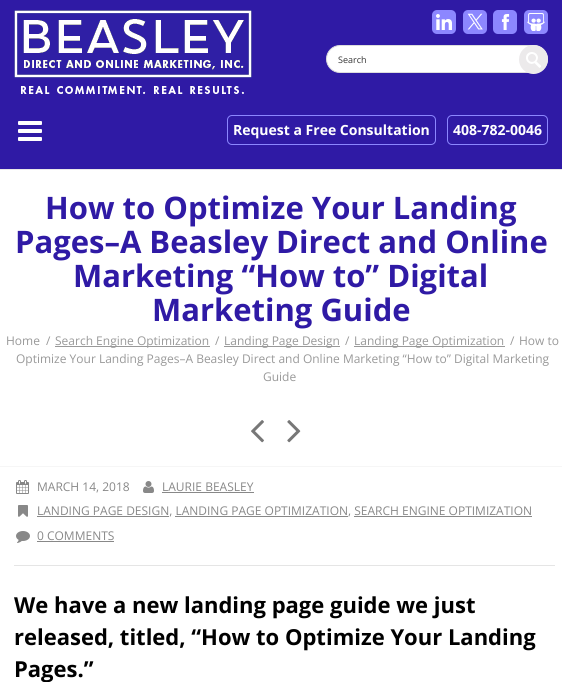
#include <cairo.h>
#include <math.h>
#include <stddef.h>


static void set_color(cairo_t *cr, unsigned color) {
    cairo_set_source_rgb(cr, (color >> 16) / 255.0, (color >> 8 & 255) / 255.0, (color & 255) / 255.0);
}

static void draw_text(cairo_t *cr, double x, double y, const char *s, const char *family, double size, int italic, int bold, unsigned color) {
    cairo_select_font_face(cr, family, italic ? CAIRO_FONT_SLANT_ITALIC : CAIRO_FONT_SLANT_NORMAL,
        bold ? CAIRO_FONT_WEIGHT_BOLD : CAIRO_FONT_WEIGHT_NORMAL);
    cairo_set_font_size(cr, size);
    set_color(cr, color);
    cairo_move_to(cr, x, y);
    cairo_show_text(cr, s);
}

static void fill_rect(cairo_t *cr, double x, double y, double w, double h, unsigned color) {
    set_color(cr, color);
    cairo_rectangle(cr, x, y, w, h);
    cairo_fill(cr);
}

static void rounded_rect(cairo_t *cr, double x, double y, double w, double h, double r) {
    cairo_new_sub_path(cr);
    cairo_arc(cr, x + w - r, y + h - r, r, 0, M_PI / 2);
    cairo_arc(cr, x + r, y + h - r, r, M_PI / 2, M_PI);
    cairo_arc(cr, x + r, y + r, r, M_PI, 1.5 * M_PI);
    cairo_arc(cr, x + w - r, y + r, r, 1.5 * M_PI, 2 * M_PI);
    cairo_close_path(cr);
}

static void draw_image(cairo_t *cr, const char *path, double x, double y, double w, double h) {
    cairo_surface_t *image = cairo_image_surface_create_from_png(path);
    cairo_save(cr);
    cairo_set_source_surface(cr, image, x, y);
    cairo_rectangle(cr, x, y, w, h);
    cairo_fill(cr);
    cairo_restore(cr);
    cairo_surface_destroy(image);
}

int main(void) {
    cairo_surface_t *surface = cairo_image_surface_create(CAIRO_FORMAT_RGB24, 562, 682);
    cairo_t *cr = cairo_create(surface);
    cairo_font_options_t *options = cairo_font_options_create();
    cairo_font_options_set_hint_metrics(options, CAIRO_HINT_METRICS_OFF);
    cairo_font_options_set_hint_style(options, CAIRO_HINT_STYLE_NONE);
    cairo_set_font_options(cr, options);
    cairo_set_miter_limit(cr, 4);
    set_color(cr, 0xFFFFFF);
    cairo_paint(cr);
    fill_rect(cr, 0, 0, 562, 169, 0x2F1AA5);
    fill_rect(cr, 0, 169, 562, 1, 0xE8E8E8);
    draw_image(cr, "assets/img1.png", 14, 10, 238, 84);
    draw_image(cr, "assets/img2.png", 432, 10, 24, 24);
    draw_image(cr, "assets/img3.png", 463, 10, 24, 24);
    draw_image(cr, "assets/img4.png", 493, 10, 24, 24);
    draw_image(cr, "assets/img5.png", 524, 10, 24, 24);
    set_color(cr, 0xFFFFFF);
    rounded_rect(cr, 326.5, 45.5, 221, 27, 13.5);
    cairo_fill_preserve(cr);
    set_color(cr, 0xDDDDDD);
    cairo_set_line_width(cr, 1);
    cairo_stroke(cr);
    draw_text(cr, 338, 63, "Search", "Open Sans", 9, 0, 0, 0x333333);
    set_color(cr, 0xECEAEB);
    cairo_new_path(cr);
    cairo_arc(cr, 533.5, 59.5, 14.5, 0, 2 * M_PI);
    cairo_fill(cr);
    draw_image(cr, "assets/img6.png", 526, 52, 15, 16);
    draw_image(cr, "assets/img7.png", 18, 121, 24, 20);
    rounded_rect(cr, 227.5, 115.5, 208, 29, 4.5);
    set_color(cr, 0x8C87FF);
    cairo_stroke(cr);
    draw_text(cr, 233, 135, "Request a Free Consultation", "Open Sans", 14, 0, 1, 0xFFFFFF);
    rounded_rect(cr, 447.5, 115.5, 100, 29, 4.5);
    set_color(cr, 0x8C87FF);
    cairo_stroke(cr);
    draw_text(cr, 453, 135, "408-782-0046", "Open Sans", 14, 0, 1, 0xFFFFFF);
    fill_rect(cr, 0, 466, 562, 1, 0xF6F6F6);
    draw_text(cr, 45, 219, "How to Optimize Your Landing", "Open Sans", 31, 0, 1, 0x2F1AA5);
    draw_text(cr, 15, 253, "Pages–A Beasley Direct and Online", "Open Sans", 31, 0, 1, 0x2F1AA5);
    draw_text(cr, 73, 287, "Marketing “How to” Digital", "Open Sans", 31, 0, 1, 0x2F1AA5);
    draw_text(cr, 152, 321, "Marketing Guide", "Open Sans", 31, 0, 1, 0x2F1AA5);
    draw_text(cr, 6, 345, "Home", "Open Sans", 12, 0, 0, 0x999999);
    draw_text(cr, 46, 345, "/", "Open Sans", 12, 0, 0, 0x999999);
    fill_rect(cr, 55, 346, 155, 1, 0x999999);
    draw_text(cr, 55, 345, "Search Engine Optimization", "Open Sans", 12, 0, 0, 0x999999);
    draw_text(cr, 215, 345, "/", "Open Sans", 12, 0, 0, 0x999999);
    fill_rect(cr, 224, 346, 116, 1, 0x999999);
    draw_text(cr, 224, 345, "Landing Page Design", "Open Sans", 12, 0, 0, 0x999999);
    draw_text(cr, 345, 345, "/", "Open Sans", 12, 0, 0, 0x999999);
    fill_rect(cr, 354, 346, 151, 1, 0x999999);
    draw_text(cr, 354, 345, "Landing Page Optimization", "Open Sans", 12, 0, 0, 0x999999);
    draw_text(cr, 510, 345, "/", "Open Sans", 12, 0, 0, 0x999999);
    draw_text(cr, 519, 345, "How to", "Open Sans", 12, 0, 0, 0x999999);
    draw_text(cr, 16, 363, "Optimize Your Landing Pages–A Beasley Direct and Online Marketing “How to” Digital Marketing", "Open Sans", 12, 0, 0, 0x999999);
    draw_text(cr, 263, 381, "Guide", "Open Sans", 12, 0, 0, 0x999999);
    draw_image(cr, "assets/img8.png", 251, 420, 13, 23);
    draw_image(cr, "assets/img9.png", 287, 420, 14, 23);
    fill_rect(cr, 14, 565, 541, 1, 0xE5E5E5);
    draw_image(cr, "assets/img10.png", 16, 480, 13, 14);
    draw_text(cr, 37, 491, "MARCH 14, 2018", "Open Sans", 12, 0, 0, 0x888888);
    draw_image(cr, "assets/img11.png", 143, 481, 11, 12);
    draw_text(cr, 162, 491, "LAURIE BEASLEY", "Open Sans", 12, 0, 0, 0x888888);
    fill_rect(cr, 162, 492, 92, 1, 0x888888);
    draw_image(cr, "assets/img12.png", 18, 505, 10, 12);
    fill_rect(cr, 37, 516, 132, 1, 0x888888);
    draw_text(cr, 37, 515, "LANDING PAGE DESIGN, LANDING PAGE OPTIMIZATION, SEARCH ENGINE OPTIMIZATION", "Open Sans", 12, 0, 0, 0x888888);
    fill_rect(cr, 175, 516, 173, 1, 0x888888);
    fill_rect(cr, 354, 516, 178, 1, 0x888888);
    draw_image(cr, "assets/img13.png", 16, 531, 14, 12);
    draw_text(cr, 37, 540, "0 COMMENTS", "Open Sans", 12, 0, 0, 0x888888);
    fill_rect(cr, 37, 541, 77, 1, 0x888888);
    draw_text(cr, 14, 613, "We have a new landing page guide we just", "Open Sans", 22, 0, 1, 0x000000);
    draw_text(cr, 14, 645, "released, titled, “How to Optimize Your Landing", "Open Sans", 22, 0, 1, 0x000000);
    draw_text(cr, 14, 677, "Pages.”", "Open Sans", 22, 0, 1, 0x000000);
    cairo_surface_write_to_png(surface, "output.png");
    cairo_font_options_destroy(options);
    cairo_destroy(cr);
    cairo_surface_destroy(surface);
    return 0;
}
